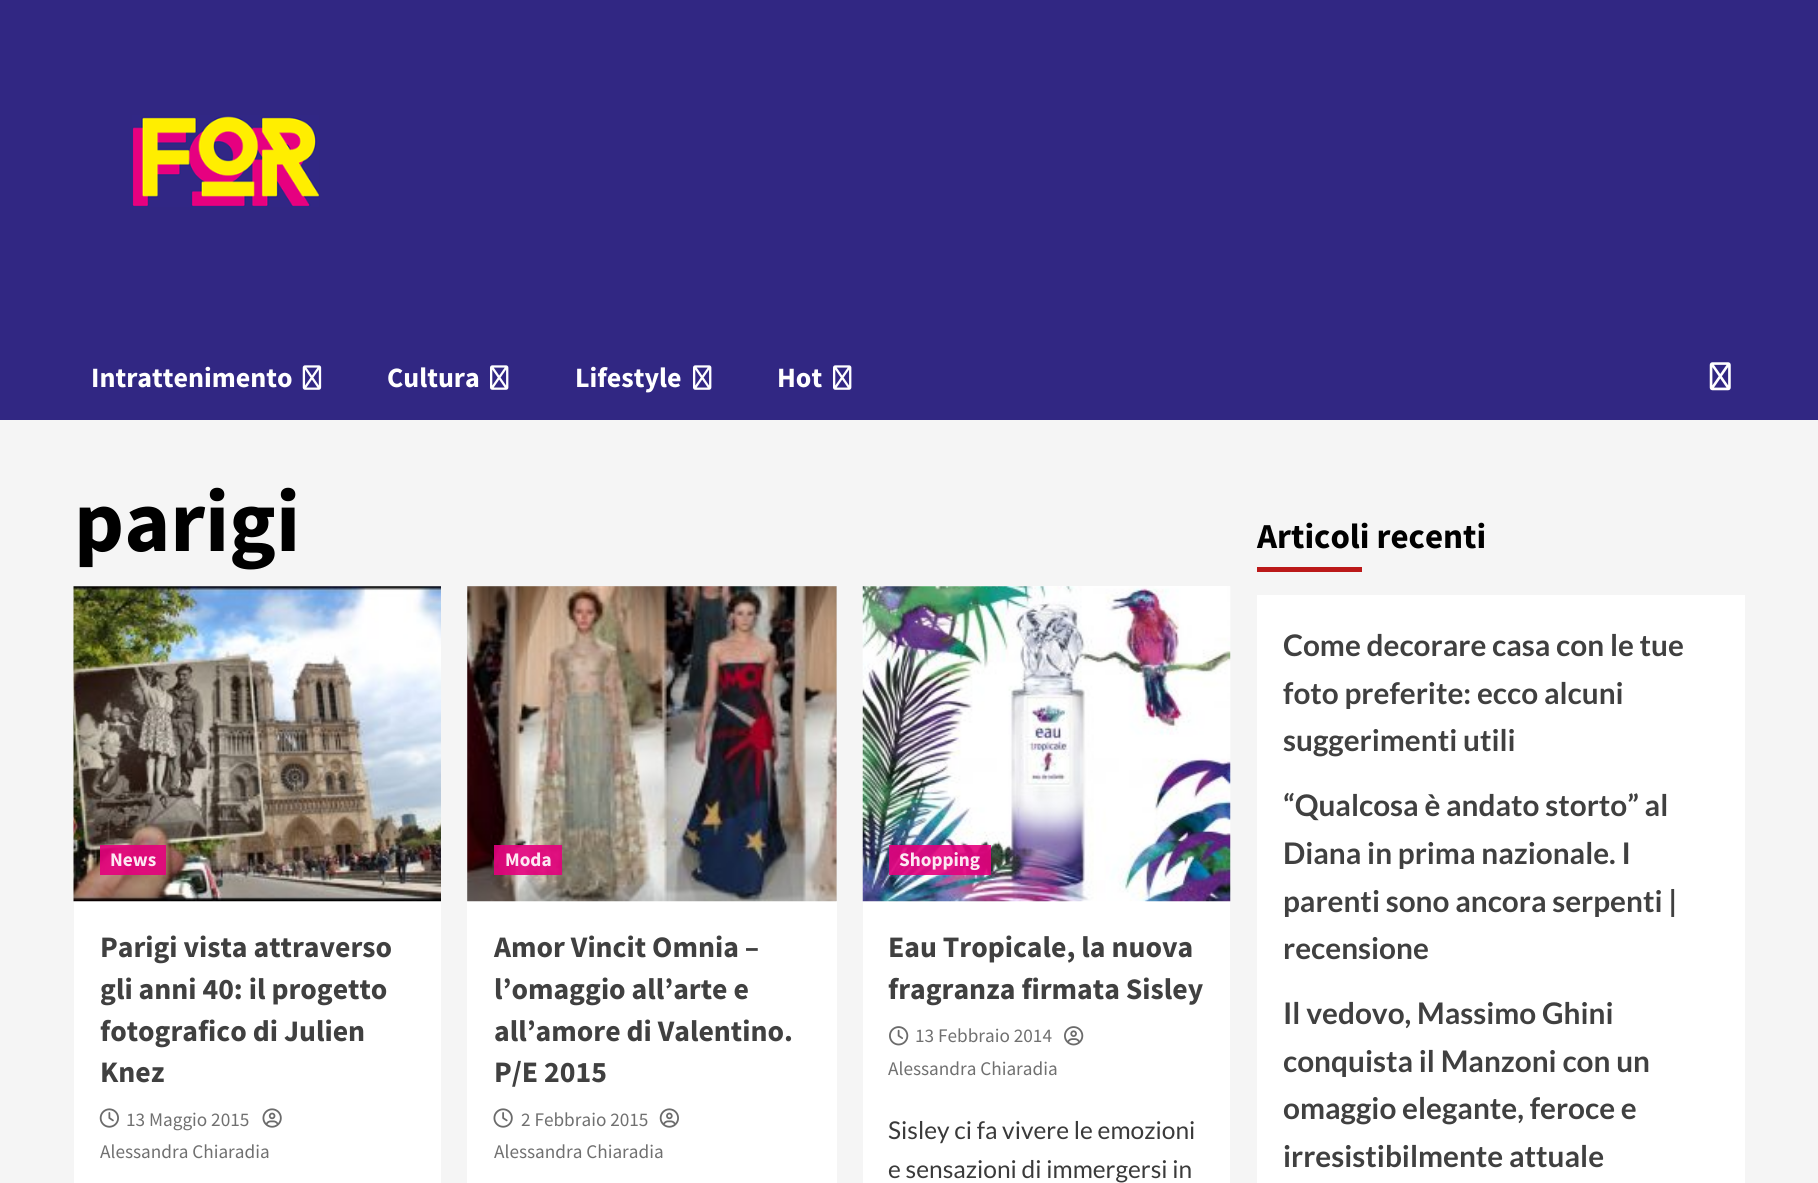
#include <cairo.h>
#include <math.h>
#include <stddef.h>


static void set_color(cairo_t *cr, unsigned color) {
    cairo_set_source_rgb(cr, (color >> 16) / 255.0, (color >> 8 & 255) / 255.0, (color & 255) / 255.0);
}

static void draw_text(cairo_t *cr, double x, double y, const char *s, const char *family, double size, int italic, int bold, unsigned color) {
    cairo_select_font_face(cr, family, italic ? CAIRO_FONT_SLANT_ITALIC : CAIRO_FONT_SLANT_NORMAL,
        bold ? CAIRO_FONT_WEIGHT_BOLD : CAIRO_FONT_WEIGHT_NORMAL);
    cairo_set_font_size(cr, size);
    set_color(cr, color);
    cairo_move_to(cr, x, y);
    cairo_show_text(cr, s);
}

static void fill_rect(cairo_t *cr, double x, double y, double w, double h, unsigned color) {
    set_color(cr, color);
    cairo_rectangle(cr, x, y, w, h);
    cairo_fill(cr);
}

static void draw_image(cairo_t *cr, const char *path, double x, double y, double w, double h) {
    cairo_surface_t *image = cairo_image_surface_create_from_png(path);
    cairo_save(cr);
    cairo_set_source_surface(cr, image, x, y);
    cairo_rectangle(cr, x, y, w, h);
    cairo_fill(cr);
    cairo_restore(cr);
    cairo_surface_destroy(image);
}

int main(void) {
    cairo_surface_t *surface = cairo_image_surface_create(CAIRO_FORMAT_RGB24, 1818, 1183);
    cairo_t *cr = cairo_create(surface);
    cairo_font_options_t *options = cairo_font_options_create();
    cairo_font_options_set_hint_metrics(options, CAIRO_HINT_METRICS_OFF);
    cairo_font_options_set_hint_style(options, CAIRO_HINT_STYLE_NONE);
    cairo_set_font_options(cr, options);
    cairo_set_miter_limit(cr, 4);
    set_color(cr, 0xF5F5F5);
    cairo_paint(cr);
    fill_rect(cr, 0, 0, 1818, 420, 0x312783);
    draw_image(cr, "assets/img1.png", 132, 115, 187, 92);
    draw_text(cr, 91, 387, "Intrattenimento", "Source Sans Pro", 28, 0, 1, 0xFFFFFF);
    draw_image(cr, "assets/img2.png", 302, 365, 20, 25);
    draw_text(cr, 387, 387, "Cultura", "Source Sans Pro", 28, 0, 1, 0xFFFFFF);
    draw_image(cr, "assets/img3.png", 490, 365, 19, 25);
    draw_text(cr, 575, 387, "Lifestyle", "Source Sans Pro", 28, 0, 1, 0xFFFFFF);
    draw_image(cr, "assets/img3.png", 693, 365, 19, 25);
    draw_text(cr, 777, 387, "Hot", "Source Sans Pro", 28, 0, 1, 0xFFFFFF);
    draw_image(cr, "assets/img3.png", 833, 365, 19, 25);
    draw_image(cr, "assets/img4.png", 1709, 362, 22, 29);
    draw_text(cr, 74, 551, "parigi", "Source Sans Pro", 87.5, 0, 1, 0x000000);
    fill_rect(cr, 74, 586, 367, 597, 0xFFFFFF);
    draw_image(cr, "assets/img5.png", 73, 586, 368, 316);
    cairo_set_source_rgba(cr, 0.898, 0, 0.494, 0.9);
    cairo_rectangle(cr, 100, 845, 66, 30);
    cairo_fill(cr);
    draw_text(cr, 110, 866, "News", "Source Sans Pro", 19.25, 0, 1, 0xFCE7F2);
    draw_text(cr, 100, 957, "Parigi vista attraverso", "Source Sans Pro", 29.75, 0, 1, 0x404040);
    draw_text(cr, 100, 999, "gli anni 40: il progetto", "Source Sans Pro", 29.75, 0, 1, 0x404040);
    draw_text(cr, 100, 1041, "fotografico di Julien", "Source Sans Pro", 29.75, 0, 1, 0x404040);
    draw_text(cr, 100, 1082, "Knez", "Source Sans Pro", 29.75, 0, 1, 0x404040);
    draw_image(cr, "assets/img6.png", 99, 1108, 20, 20);
    draw_text(cr, 126, 1126, "13 Maggio 2015", "Source Sans Pro", 19.25, 0, 0, 0x707070);
    draw_image(cr, "assets/img7.png", 262, 1108, 20, 20);
    draw_text(cr, 100, 1158, "Alessandra Chiaradia", "Source Sans Pro", 19.25, 0, 0, 0x707070);
    fill_rect(cr, 467, 901, 370, 282, 0xFFFFFF);
    fill_rect(cr, 467, 586, 370, 315, 0xD8D8D8);
    draw_image(cr, "assets/img8.png", 467, 586, 370, 316);
    cairo_set_source_rgba(cr, 0.898, 0, 0.494, 0.9);
    cairo_rectangle(cr, 494, 845, 68, 30);
    cairo_fill(cr);
    draw_text(cr, 505, 866, "Moda", "Source Sans Pro", 19.25, 0, 1, 0xFCE7F2);
    draw_text(cr, 494, 957, "Amor Vincit Omnia –", "Source Sans Pro", 29.75, 0, 1, 0x404040);
    draw_text(cr, 494, 999, "l’omaggio all’arte e", "Source Sans Pro", 29.75, 0, 1, 0x404040);
    draw_text(cr, 494, 1041, "all’amore di Valentino.", "Source Sans Pro", 29.75, 0, 1, 0x404040);
    draw_text(cr, 494, 1082, "P/E 2015", "Source Sans Pro", 29.75, 0, 1, 0x404040);
    draw_image(cr, "assets/img9.png", 493, 1108, 20, 20);
    draw_text(cr, 521, 1126, "2 Febbraio 2015", "Source Sans Pro", 19.25, 0, 0, 0x707070);
    draw_image(cr, "assets/img10.png", 659, 1108, 20, 20);
    draw_text(cr, 494, 1158, "Alessandra Chiaradia", "Source Sans Pro", 19.25, 0, 0, 0x707070);
    fill_rect(cr, 863, 586, 367, 597, 0xFFFFFF);
    draw_image(cr, "assets/img11.png", 862, 586, 369, 316);
    cairo_set_source_rgba(cr, 0.898, 0, 0.494, 0.9);
    cairo_rectangle(cr, 889, 845, 102, 30);
    cairo_fill(cr);
    draw_text(cr, 899, 866, "Shopping", "Source Sans Pro", 19.25, 0, 1, 0xFCE7F2);
    draw_text(cr, 888, 957, "Eau Tropicale, la nuova", "Source Sans Pro", 29.75, 0, 1, 0x404040);
    draw_text(cr, 888, 999, "fragranza firmata Sisley", "Source Sans Pro", 29.75, 0, 1, 0x404040);
    draw_image(cr, "assets/img12.png", 889, 1026, 20, 20);
    draw_text(cr, 915, 1042, "13 Febbraio 2014", "Source Sans Pro", 19.25, 0, 0, 0x707070);
    draw_image(cr, "assets/img13.png", 1064, 1026, 20, 20);
    draw_text(cr, 888, 1075, "Alessandra Chiaradia", "Source Sans Pro", 19.25, 0, 0, 0x707070);
    draw_text(cr, 888, 1139, "Sisley ci fa vivere le emozioni", "Lato", 24.5, 0, 0, 0x3A3A3A);
    draw_text(cr, 888, 1178, "e sensazioni di immergersi in", "Lato", 24.5, 0, 0, 0x3A3A3A);
    draw_text(cr, 1257, 548, "Articoli recenti", "Source Sans Pro", 35, 0, 1, 0x000000);
    fill_rect(cr, 1257, 567, 105, 5, 0xBB1919);
    fill_rect(cr, 1257, 595, 488, 588, 0xFFFFFF);
    draw_text(cr, 1283, 656, "Come decorare casa con le tue", "Lato", 29.75, 0, 1, 0x404040);
    draw_text(cr, 1283, 704, "foto preferite: ecco alcuni", "Lato", 29.75, 0, 1, 0x404040);
    draw_text(cr, 1283, 751, "suggerimenti utili", "Lato", 29.75, 0, 1, 0x404040);
    draw_text(cr, 1283, 816, "“Qualcosa è andato storto” al", "Lato", 29.75, 0, 1, 0x404040);
    draw_text(cr, 1283, 864, "Diana in prima nazionale. I", "Lato", 29.75, 0, 1, 0x404040);
    draw_text(cr, 1283, 912, "parenti sono ancora serpenti |", "Lato", 29.75, 0, 1, 0x404040);
    draw_text(cr, 1283, 959, "recensione", "Lato", 29.75, 0, 1, 0x404040);
    draw_text(cr, 1283, 1024, "Il vedovo, Massimo Ghini", "Lato", 29.75, 0, 1, 0x404040);
    draw_text(cr, 1283, 1072, "conquista il Manzoni con un", "Lato", 29.75, 0, 1, 0x404040);
    draw_text(cr, 1283, 1119, "omaggio elegante, feroce e", "Lato", 29.75, 0, 1, 0x404040);
    draw_text(cr, 1283, 1167, "irresistibilmente attuale", "Lato", 29.75, 0, 1, 0x404040);
    cairo_surface_write_to_png(surface, "output.png");
    cairo_font_options_destroy(options);
    cairo_destroy(cr);
    cairo_surface_destroy(surface);
    return 0;
}
